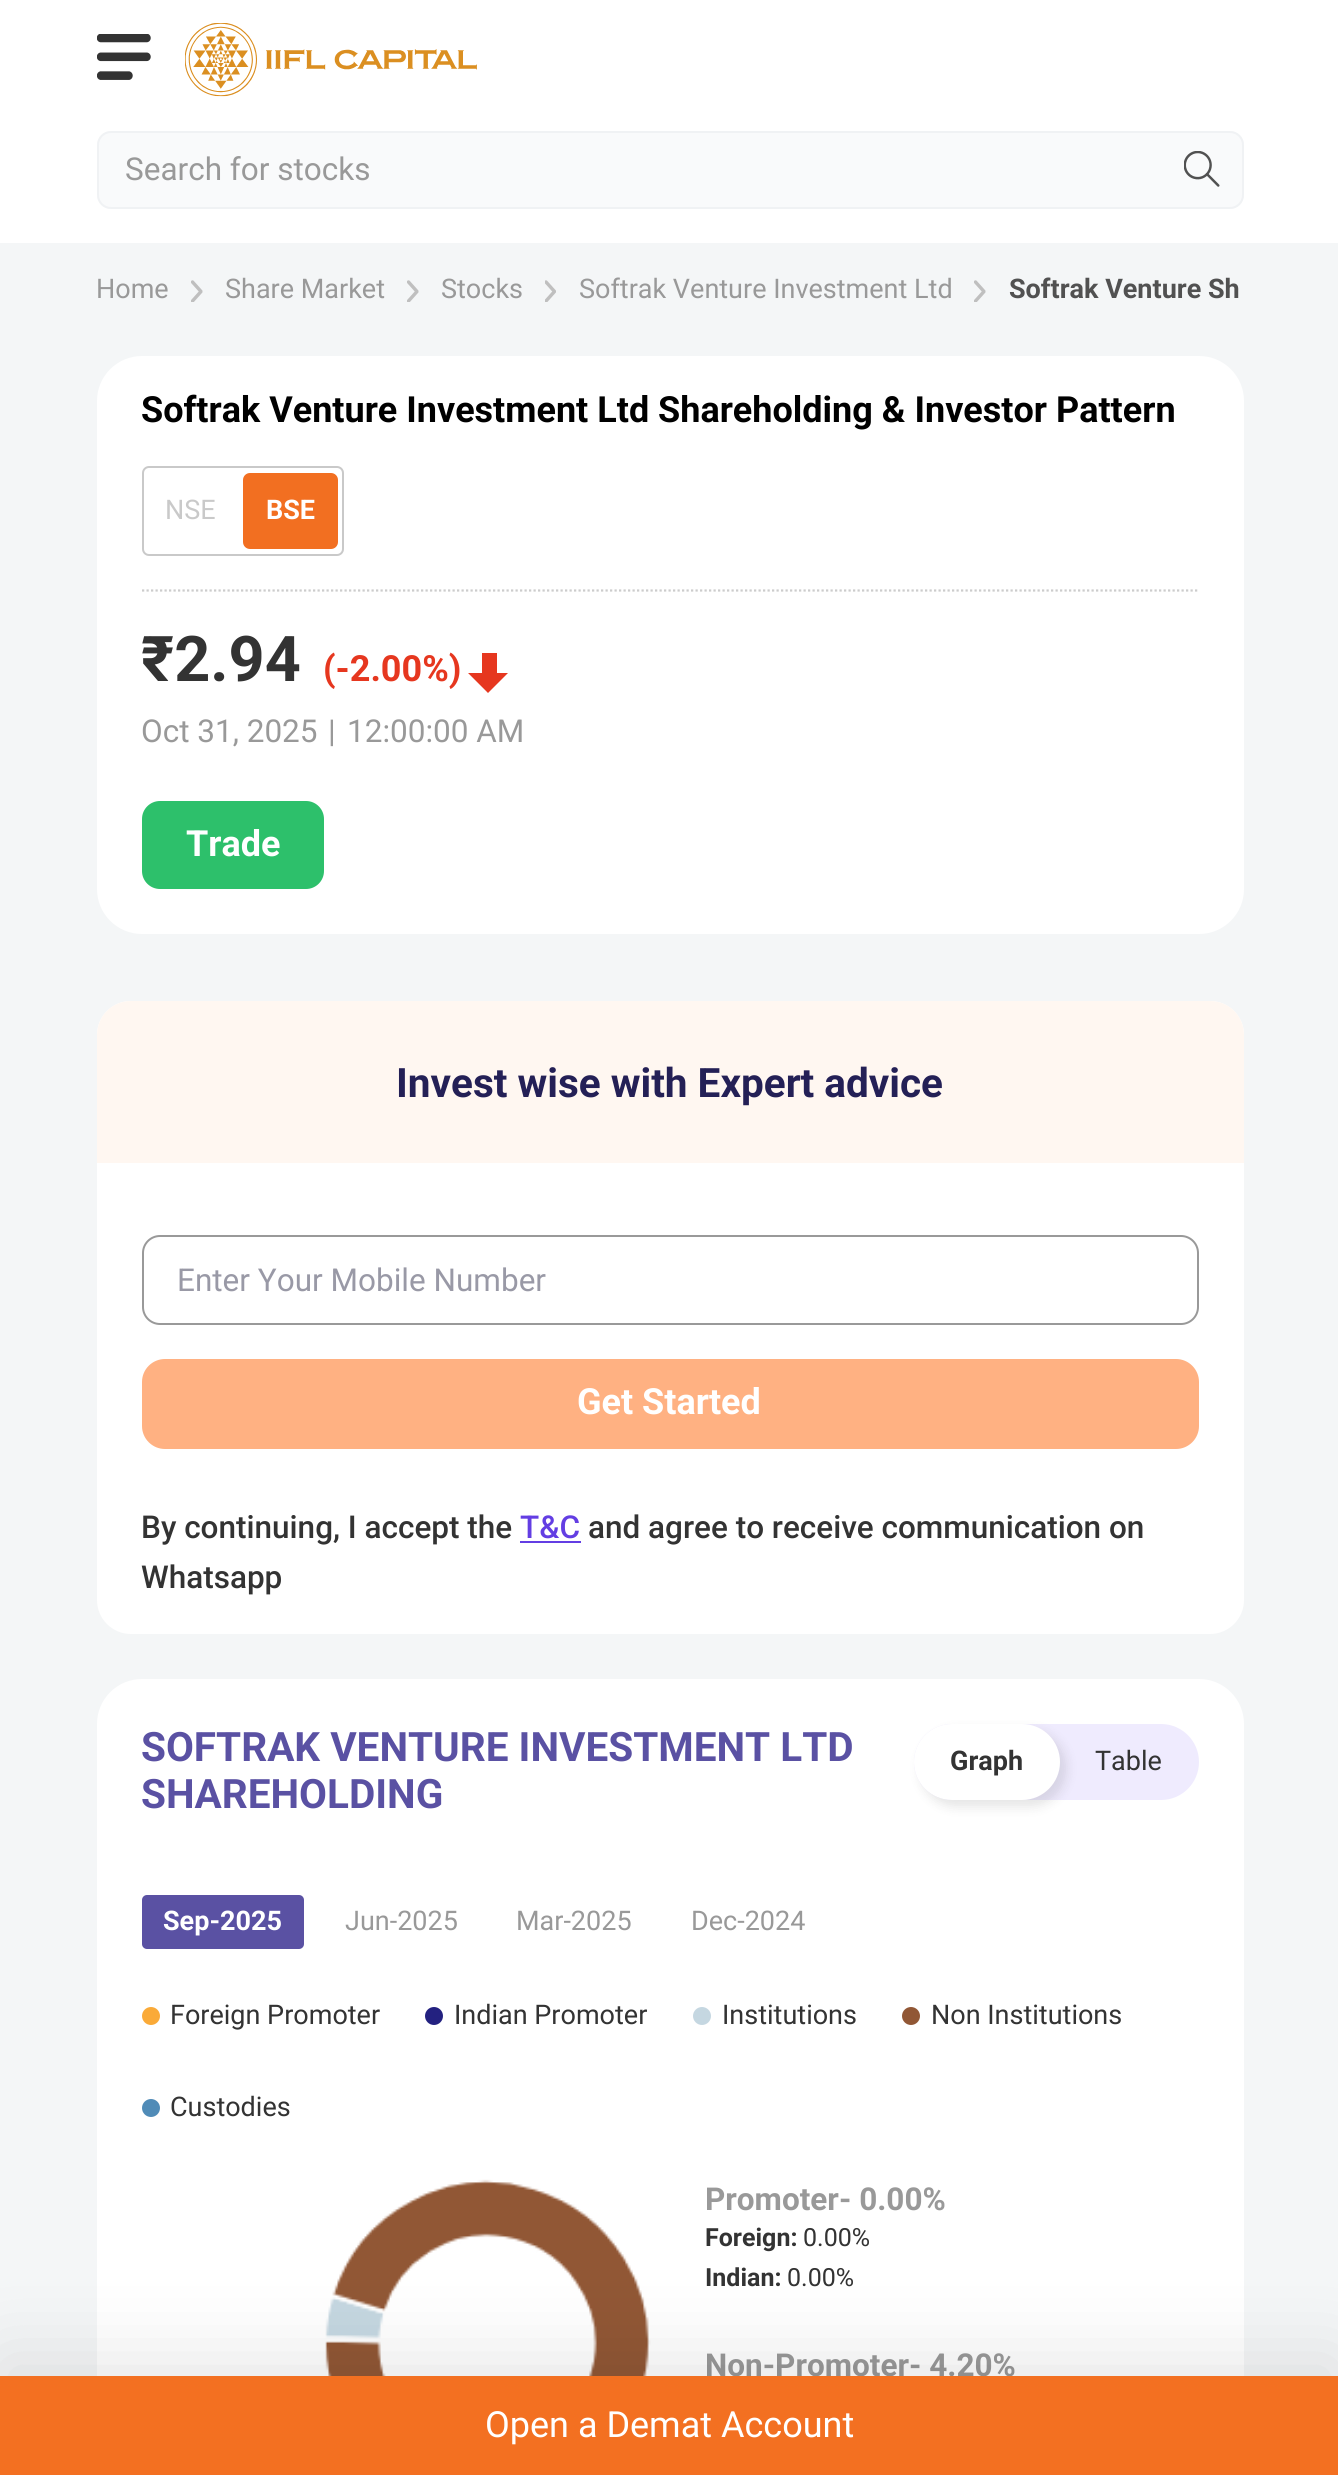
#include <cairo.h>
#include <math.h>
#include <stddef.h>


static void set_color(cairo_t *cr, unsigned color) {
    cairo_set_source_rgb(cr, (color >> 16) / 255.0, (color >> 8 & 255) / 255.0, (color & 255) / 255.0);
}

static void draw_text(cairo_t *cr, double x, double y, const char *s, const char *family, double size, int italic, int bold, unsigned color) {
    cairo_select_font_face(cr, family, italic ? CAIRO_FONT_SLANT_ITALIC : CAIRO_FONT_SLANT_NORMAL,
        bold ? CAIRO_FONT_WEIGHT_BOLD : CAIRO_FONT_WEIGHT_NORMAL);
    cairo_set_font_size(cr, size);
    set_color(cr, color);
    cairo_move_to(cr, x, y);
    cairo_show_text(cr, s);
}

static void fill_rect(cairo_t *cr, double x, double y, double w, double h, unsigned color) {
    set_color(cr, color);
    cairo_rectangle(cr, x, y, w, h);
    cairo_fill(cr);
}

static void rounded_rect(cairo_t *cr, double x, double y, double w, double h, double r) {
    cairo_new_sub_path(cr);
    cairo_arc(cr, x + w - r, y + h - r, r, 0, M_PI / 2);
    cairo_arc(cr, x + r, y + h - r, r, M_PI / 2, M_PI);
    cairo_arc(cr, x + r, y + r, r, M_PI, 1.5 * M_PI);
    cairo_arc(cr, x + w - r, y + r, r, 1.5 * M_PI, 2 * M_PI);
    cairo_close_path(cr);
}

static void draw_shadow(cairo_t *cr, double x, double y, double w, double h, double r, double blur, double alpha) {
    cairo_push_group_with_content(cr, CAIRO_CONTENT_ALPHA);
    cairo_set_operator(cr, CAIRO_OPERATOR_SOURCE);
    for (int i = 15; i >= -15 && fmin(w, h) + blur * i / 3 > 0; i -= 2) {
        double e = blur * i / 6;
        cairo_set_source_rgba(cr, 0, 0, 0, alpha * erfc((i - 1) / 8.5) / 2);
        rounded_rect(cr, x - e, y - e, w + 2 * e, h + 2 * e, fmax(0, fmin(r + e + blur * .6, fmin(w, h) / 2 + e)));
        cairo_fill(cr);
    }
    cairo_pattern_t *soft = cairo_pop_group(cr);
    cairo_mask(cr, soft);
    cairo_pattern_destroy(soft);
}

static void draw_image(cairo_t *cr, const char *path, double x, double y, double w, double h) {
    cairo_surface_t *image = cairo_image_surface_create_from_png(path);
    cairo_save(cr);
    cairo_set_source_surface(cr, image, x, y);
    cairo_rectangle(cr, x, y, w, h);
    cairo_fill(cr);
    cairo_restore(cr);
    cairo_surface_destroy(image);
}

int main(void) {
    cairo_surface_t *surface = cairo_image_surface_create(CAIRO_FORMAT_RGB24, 1338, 2475);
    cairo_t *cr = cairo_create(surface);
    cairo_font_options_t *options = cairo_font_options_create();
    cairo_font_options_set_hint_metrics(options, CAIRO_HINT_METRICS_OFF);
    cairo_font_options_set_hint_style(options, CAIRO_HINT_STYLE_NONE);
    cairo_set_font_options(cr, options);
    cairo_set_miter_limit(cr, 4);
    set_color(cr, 0xF4F6F7);
    cairo_paint(cr);
    fill_rect(cr, 0, 0, 1338, 243, 0xFFFFFF);
    draw_image(cr, "assets/img1.png", 97, 34, 54, 46);
    draw_image(cr, "assets/img2.png", 185, 23, 292, 74);
    set_color(cr, 0xF9FAFB);
    rounded_rect(cr, 97, 131, 1147, 78, 14);
    cairo_fill(cr);
    draw_image(cr, "assets/img3.png", 1184, 151, 36, 36);
    rounded_rect(cr, 98, 132, 1145, 76, 13);
    set_color(cr, 0xF0F2F4);
    cairo_stroke(cr);
    draw_text(cr, 125, 180, "Search for stocks", "Roboto", 31.5, 0, 0, 0x999999);
    draw_text(cr, 96, 298, "Home", "Roboto", 27, 0, 0, 0x999999);
    cairo_save(cr);
    cairo_rectangle(cr, 191, 279, 12, 23);
    cairo_clip(cr);
    cairo_new_path(cr);
    cairo_move_to(cr, 191, 302.5);
    cairo_line_to(cr, 191, 280);
    cairo_line_to(cr, 202.5, 280);
    cairo_line_to(cr, 202.5, 302.5);
    cairo_close_path(cr);
    cairo_clip(cr);
    cairo_new_path(cr);
    cairo_move_to(cr, 192.5, 301);
    cairo_line_to(cr, 201, 291.5);
    cairo_line_to(cr, 192.5, 282);
    set_color(cr, 0xBFBFBF);
    cairo_set_line_width(cr, 3.4);
    cairo_set_line_cap(cr, CAIRO_LINE_CAP_ROUND);
    cairo_set_line_join(cr, CAIRO_LINE_JOIN_ROUND);
    cairo_stroke(cr);
    cairo_restore(cr);
    draw_text(cr, 225, 298, "Share Market", "Roboto", 27, 0, 0, 0x999999);
    cairo_save(cr);
    cairo_rectangle(cr, 407, 279, 12, 23);
    cairo_clip(cr);
    cairo_new_path(cr);
    cairo_move_to(cr, 407, 302.5);
    cairo_line_to(cr, 407, 280);
    cairo_line_to(cr, 418.5, 280);
    cairo_line_to(cr, 418.5, 302.5);
    cairo_close_path(cr);
    cairo_clip(cr);
    cairo_new_path(cr);
    cairo_move_to(cr, 408.5, 301);
    cairo_line_to(cr, 417, 291.5);
    cairo_line_to(cr, 408.5, 282);
    set_color(cr, 0xBFBFBF);
    cairo_set_line_width(cr, 3.4);
    cairo_set_line_cap(cr, CAIRO_LINE_CAP_ROUND);
    cairo_set_line_join(cr, CAIRO_LINE_JOIN_ROUND);
    cairo_stroke(cr);
    cairo_restore(cr);
    draw_text(cr, 441, 298, "Stocks", "Roboto", 27, 0, 0, 0x999999);
    cairo_save(cr);
    cairo_rectangle(cr, 545, 279, 11, 23);
    cairo_clip(cr);
    cairo_new_path(cr);
    cairo_move_to(cr, 544.5, 302.5);
    cairo_line_to(cr, 544.5, 280);
    cairo_line_to(cr, 556, 280);
    cairo_line_to(cr, 556, 302.5);
    cairo_close_path(cr);
    cairo_clip(cr);
    cairo_new_path(cr);
    cairo_move_to(cr, 546, 301);
    cairo_line_to(cr, 554.5, 291.5);
    cairo_line_to(cr, 546, 282);
    set_color(cr, 0xBFBFBF);
    cairo_set_line_width(cr, 3.4);
    cairo_set_line_cap(cr, CAIRO_LINE_CAP_ROUND);
    cairo_set_line_join(cr, CAIRO_LINE_JOIN_ROUND);
    cairo_stroke(cr);
    cairo_restore(cr);
    draw_text(cr, 579, 298, "Softrak Venture Investment Ltd", "Roboto", 27, 0, 0, 0x999999);
    cairo_save(cr);
    cairo_rectangle(cr, 974, 279, 12, 23);
    cairo_clip(cr);
    cairo_new_path(cr);
    cairo_move_to(cr, 974, 302.5);
    cairo_line_to(cr, 974, 280);
    cairo_line_to(cr, 985.5, 280);
    cairo_line_to(cr, 985.5, 302.5);
    cairo_close_path(cr);
    cairo_clip(cr);
    cairo_new_path(cr);
    cairo_move_to(cr, 975.5, 301);
    cairo_line_to(cr, 984, 291.5);
    cairo_line_to(cr, 975.5, 282);
    set_color(cr, 0xBFBFBF);
    cairo_set_line_width(cr, 3.4);
    cairo_set_line_cap(cr, CAIRO_LINE_CAP_ROUND);
    cairo_set_line_join(cr, CAIRO_LINE_JOIN_ROUND);
    cairo_stroke(cr);
    cairo_restore(cr);
    draw_text(cr, 1009, 298, "Softrak Venture Sh", "Roboto", 27, 0, 1, 0x515151);
    set_color(cr, 0xFFFFFF);
    rounded_rect(cr, 97, 356, 1147, 578, 45);
    cairo_fill(cr);
    cairo_new_path(cr);
    cairo_move_to(cr, 142, 590.5);
    cairo_line_to(cr, 1199, 590.5);
    set_color(cr, 0xCCCCCC);
    cairo_set_line_width(cr, 2.2);
    cairo_set_dash(cr, (double[]){2.25, 2.25}, 2, 0);
    cairo_stroke(cr);
    draw_text(cr, 141, 422, "Softrak Venture Investment Ltd Shareholding & Investor Pattern", "Roboto", 36, 0, 1, 0x000000);
    rounded_rect(cr, 143, 467, 200, 88, 6);
    set_color(cr, 0xC9C9C9);
    cairo_set_line_width(cr, 2);
    cairo_set_dash(cr, NULL, 0, 0);
    cairo_stroke(cr);
    draw_text(cr, 165, 519, "NSE", "Roboto", 27, 0, 0, 0xC9C9C9);
    set_color(cr, 0xF26F21);
    rounded_rect(cr, 243, 473, 95, 76, 7);
    cairo_fill(cr);
    draw_text(cr, 266, 519, "BSE", "Roboto", 27, 0, 1, 0xFFFFFF);
    draw_text(cr, 141, 681, "₹2.94", "Roboto", 63, 0, 1, 0x333333);
    draw_text(cr, 323, 681, "(-2.00%)", "Roboto", 36, 0, 1, 0xE6371F);
    cairo_new_path(cr);
    cairo_move_to(cr, 468, 673);
    cairo_line_to(cr, 508, 673);
    cairo_line_to(cr, 488, 693);
    cairo_close_path(cr);
    cairo_fill(cr);
    fill_rect(cr, 482, 653, 15, 20, 0xE6371F);
    draw_text(cr, 141, 742, "Oct 31, 2025", "Roboto", 31.5, 0, 0, 0x999999);
    draw_text(cr, 328, 742, "|", "Roboto", 31.5, 0, 0, 0x999999);
    draw_text(cr, 347, 742, "12:00:00 AM", "Roboto", 31.5, 0, 0, 0x999999);
    set_color(cr, 0x2DC06B);
    rounded_rect(cr, 142, 801, 182, 88, 18);
    cairo_fill(cr);
    draw_text(cr, 186, 856, "Trade", "Roboto", 36, 0, 1, 0xFFFFFF);
    rounded_rect(cr, 97, 1001, 1147, 633, 34);
    cairo_fill(cr);
    set_color(cr, 0xFFF7F1);
    cairo_new_path(cr);
    cairo_move_to(cr, 131, 1001);
    cairo_line_to(cr, 1210, 1001);
    cairo_curve_to(cr, 1229, 1001, 1244, 1016, 1244, 1035);
    cairo_line_to(cr, 1244, 1163);
    cairo_line_to(cr, 97, 1163);
    cairo_line_to(cr, 97, 1035);
    cairo_curve_to(cr, 97, 1016, 112, 1001, 131, 1001);
    cairo_close_path(cr);
    cairo_fill(cr);
    draw_text(cr, 396, 1097, "Invest wise with Expert advice", "Roboto", 40.5, 0, 1, 0x242056);
    rounded_rect(cr, 143, 1236, 1055, 88, 17);
    set_color(cr, 0x999999);
    cairo_stroke(cr);
    draw_text(cr, 177, 1291, "Enter Your Mobile Number", "Roboto", 31.5, 0, 0, 0x9999A6);
    set_color(cr, 0xFFB182);
    rounded_rect(cr, 143, 1360, 1055, 88, 22);
    cairo_fill_preserve(cr);
    cairo_stroke(cr);
    draw_text(cr, 577, 1414, "Get Started", "Roboto", 36, 0, 1, 0xFFFFFF);
    draw_text(cr, 141, 1538, "By continuing, I accept the", "Roboto Medium", 31.5, 0, 0, 0x333333);
    draw_text(cr, 520, 1538, "T&C", "Roboto Medium", 31.5, 0, 0, 0x633EE3);
    fill_rect(cr, 520, 1541, 61, 2, 0x633EE3);
    draw_text(cr, 588, 1538, "and agree to receive communication on", "Roboto Medium", 31.5, 0, 0, 0x333333);
    draw_text(cr, 141, 1588, "Whatsapp", "Roboto Medium", 31.5, 0, 0, 0x333333);
    set_color(cr, 0xFFFFFF);
    rounded_rect(cr, 97, 1679, 1147, 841, 45);
    cairo_fill(cr);
    draw_text(cr, 141, 1761, "SOFTRAK VENTURE INVESTMENT LTD", "Roboto", 40.5, 0, 1, 0x5A51A3);
    draw_text(cr, 141, 1808, "SHAREHOLDING", "Roboto", 40.5, 0, 1, 0x5A51A3);
    set_color(cr, 0xEFEBFE);
    rounded_rect(cr, 914, 1724, 285, 76, 38);
    cairo_fill(cr);
    set_color(cr, 0x000000);
    draw_shadow(cr, 920, 1730, 147, 77, 38.5, 5.5, 0.1);
    set_color(cr, 0xFFFFFF);
    rounded_rect(cr, 914, 1724, 146, 76, 38);
    cairo_fill(cr);
    draw_text(cr, 950, 1770, "Graph", "Roboto", 27, 0, 1, 0x333333);
    draw_text(cr, 1095, 1770, "Table", "Roboto", 27, 0, 0, 0x333333);
    set_color(cr, 0x5A51A3);
    rounded_rect(cr, 142, 1895, 162, 54, 5);
    cairo_fill(cr);
    draw_text(cr, 163, 1930, "Sep-2025", "Roboto", 27, 0, 1, 0xFFFFFF);
    draw_text(cr, 345, 1930, "Jun-2025", "Roboto", 27, 0, 0, 0x999999);
    draw_text(cr, 516, 1930, "Mar-2025", "Roboto", 27, 0, 0, 0x999999);
    draw_text(cr, 691, 1930, "Dec-2024", "Roboto", 27, 0, 0, 0x999999);
    set_color(cr, 0xFAAA38);
    cairo_new_path(cr);
    cairo_arc(cr, 151, 2016, 9, 0, 2 * M_PI);
    cairo_fill(cr);
    draw_text(cr, 170, 2024, "Foreign Promoter", "Roboto", 27, 0, 0, 0x333333);
    set_color(cr, 0x232180);
    cairo_new_path(cr);
    cairo_arc(cr, 434, 2016, 9, 0, 2 * M_PI);
    cairo_fill(cr);
    draw_text(cr, 454, 2024, "Indian Promoter", "Roboto", 27, 0, 0, 0x333333);
    set_color(cr, 0xC5D7E1);
    cairo_new_path(cr);
    cairo_arc(cr, 702, 2016, 9, 0, 2 * M_PI);
    cairo_fill(cr);
    draw_text(cr, 722, 2024, "Institutions", "Roboto", 27, 0, 0, 0x333333);
    set_color(cr, 0x915735);
    cairo_new_path(cr);
    cairo_arc(cr, 911, 2016, 9, 0, 2 * M_PI);
    cairo_fill(cr);
    draw_text(cr, 931, 2024, "Non Institutions", "Roboto", 27, 0, 0, 0x333333);
    set_color(cr, 0x508BB7);
    cairo_new_path(cr);
    cairo_arc(cr, 151, 2108, 9, 0, 2 * M_PI);
    cairo_fill(cr);
    draw_text(cr, 170, 2116, "Custodies", "Roboto", 27, 0, 0, 0x333333);
    draw_image(cr, "assets/img4.png", 325, 2179, 326, 197);
    draw_text(cr, 705, 2210, "Promoter- 0.00%", "Roboto", 31.5, 0, 1, 0x999999);
    draw_text(cr, 705, 2246, "Foreign:", "Roboto", 25, 0, 1, 0x333333);
    draw_text(cr, 803, 2246, "0.00%", "Roboto", 25, 0, 0, 0x333333);
    draw_text(cr, 705, 2286, "Indian:", "Roboto", 25, 0, 1, 0x333333);
    draw_text(cr, 787, 2286, "0.00%", "Roboto", 25, 0, 0, 0x333333);
    draw_text(cr, 705, 2376, "Non-Promoter- 4.20%", "Roboto", 31.5, 0, 1, 0x999999);
    set_color(cr, 0x000000);
    draw_shadow(cr, 0, 2358, 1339, 99, 0, 39.5, 0.1);
    fill_rect(cr, 0, 2376, 1338, 99, 0xF37021);
    draw_text(cr, 485, 2437, "Open a Demat Account", "Roboto", 36, 0, 0, 0xFFFFFF);
    cairo_surface_write_to_png(surface, "output.png");
    cairo_font_options_destroy(options);
    cairo_destroy(cr);
    cairo_surface_destroy(surface);
    return 0;
}
